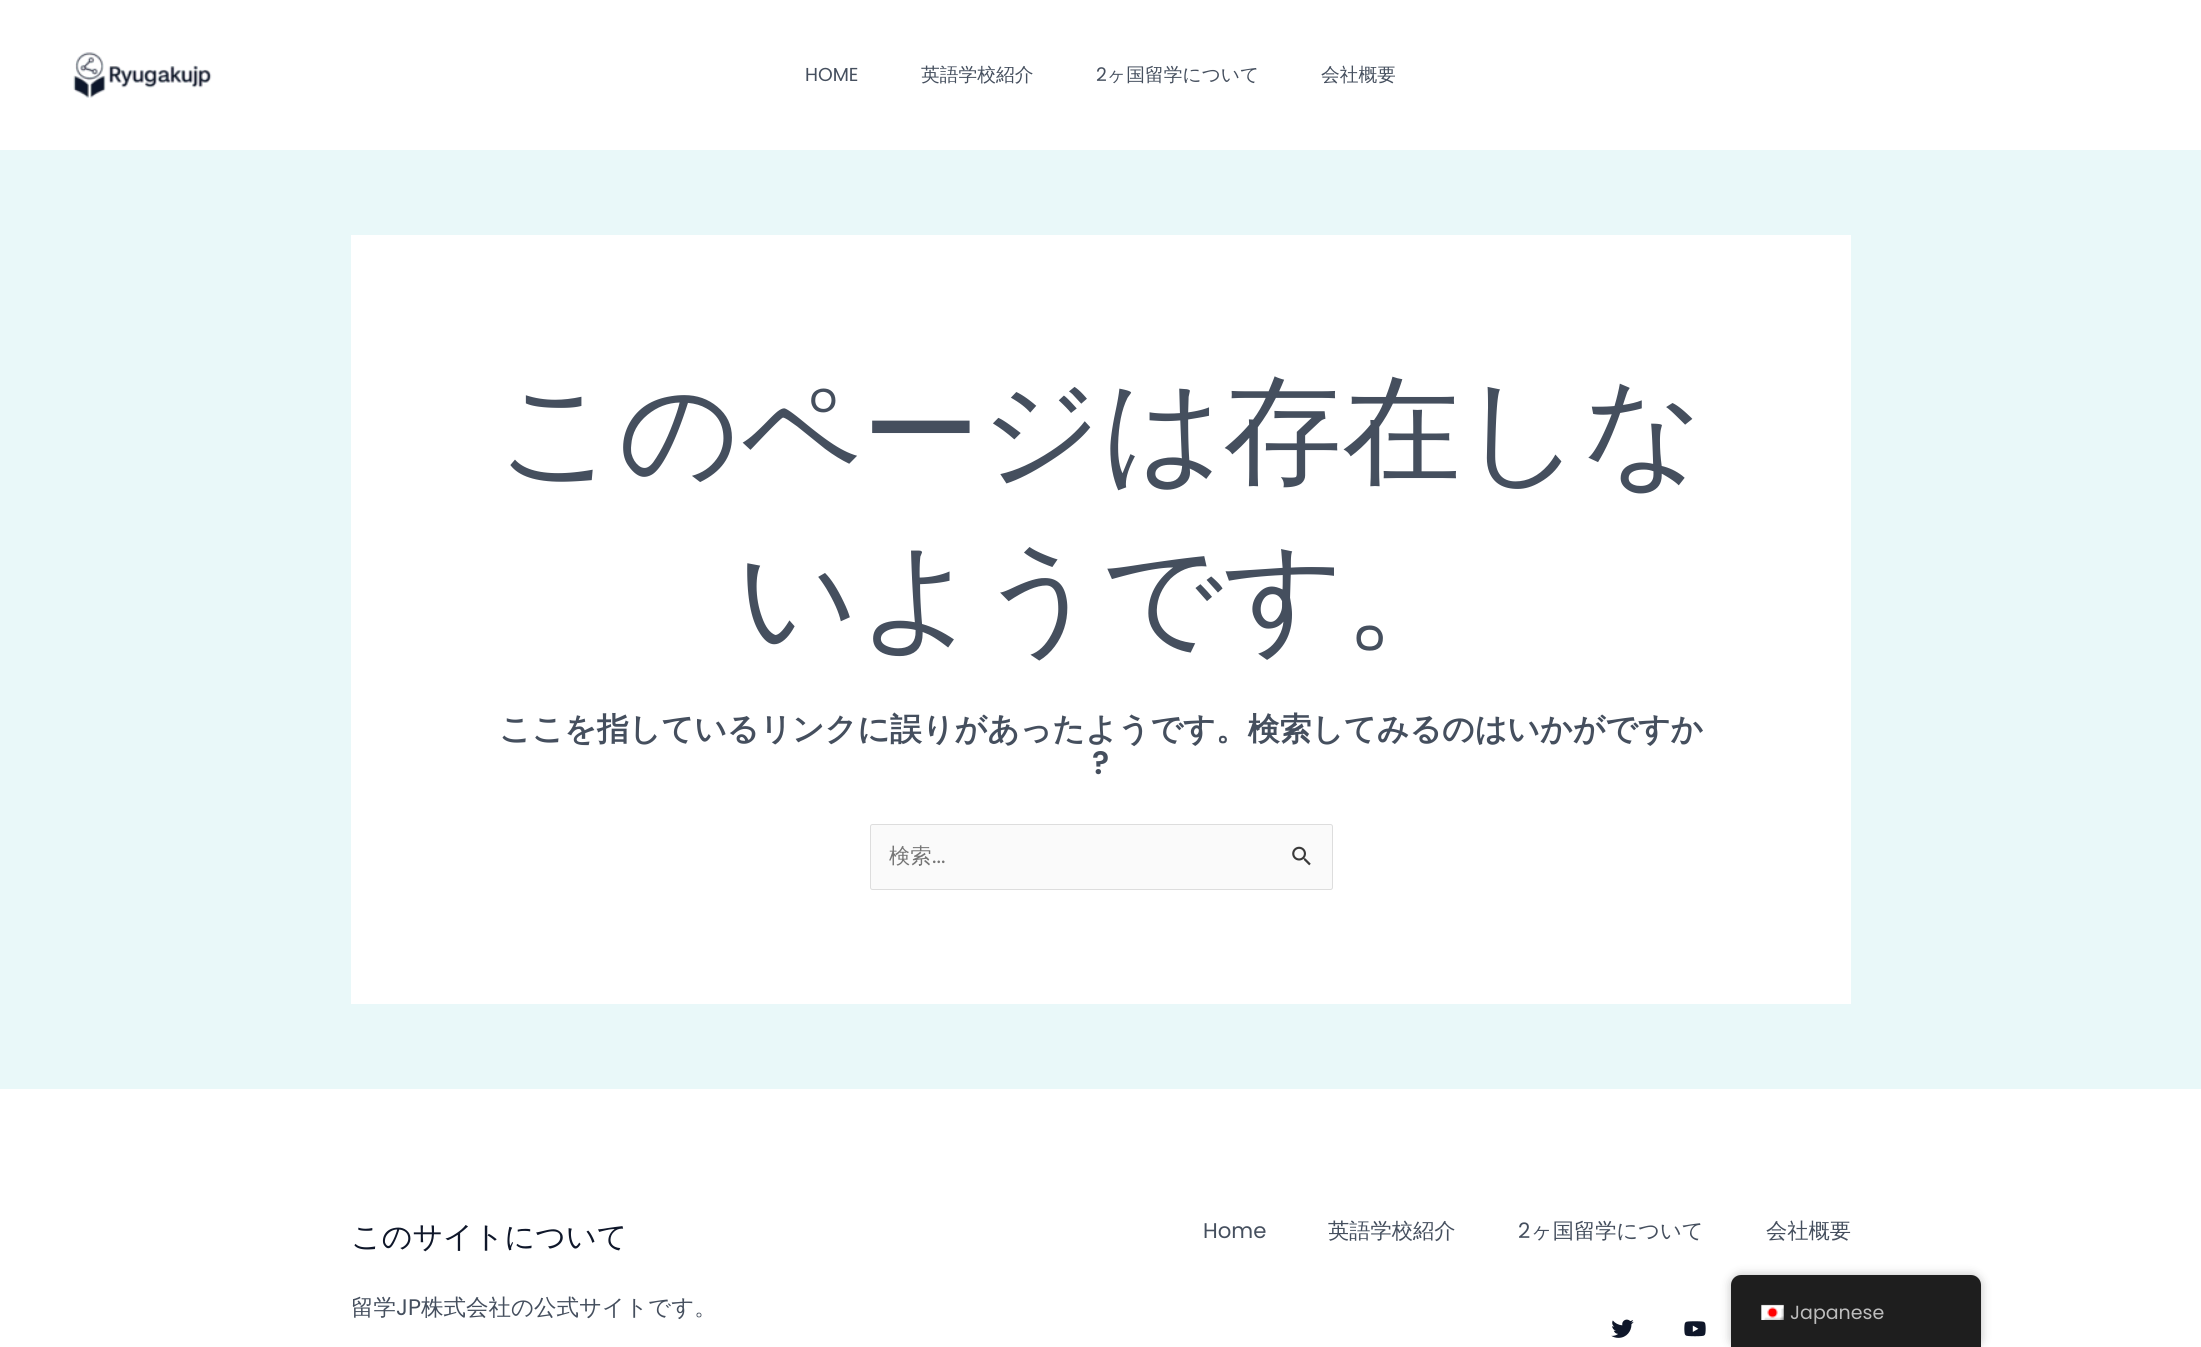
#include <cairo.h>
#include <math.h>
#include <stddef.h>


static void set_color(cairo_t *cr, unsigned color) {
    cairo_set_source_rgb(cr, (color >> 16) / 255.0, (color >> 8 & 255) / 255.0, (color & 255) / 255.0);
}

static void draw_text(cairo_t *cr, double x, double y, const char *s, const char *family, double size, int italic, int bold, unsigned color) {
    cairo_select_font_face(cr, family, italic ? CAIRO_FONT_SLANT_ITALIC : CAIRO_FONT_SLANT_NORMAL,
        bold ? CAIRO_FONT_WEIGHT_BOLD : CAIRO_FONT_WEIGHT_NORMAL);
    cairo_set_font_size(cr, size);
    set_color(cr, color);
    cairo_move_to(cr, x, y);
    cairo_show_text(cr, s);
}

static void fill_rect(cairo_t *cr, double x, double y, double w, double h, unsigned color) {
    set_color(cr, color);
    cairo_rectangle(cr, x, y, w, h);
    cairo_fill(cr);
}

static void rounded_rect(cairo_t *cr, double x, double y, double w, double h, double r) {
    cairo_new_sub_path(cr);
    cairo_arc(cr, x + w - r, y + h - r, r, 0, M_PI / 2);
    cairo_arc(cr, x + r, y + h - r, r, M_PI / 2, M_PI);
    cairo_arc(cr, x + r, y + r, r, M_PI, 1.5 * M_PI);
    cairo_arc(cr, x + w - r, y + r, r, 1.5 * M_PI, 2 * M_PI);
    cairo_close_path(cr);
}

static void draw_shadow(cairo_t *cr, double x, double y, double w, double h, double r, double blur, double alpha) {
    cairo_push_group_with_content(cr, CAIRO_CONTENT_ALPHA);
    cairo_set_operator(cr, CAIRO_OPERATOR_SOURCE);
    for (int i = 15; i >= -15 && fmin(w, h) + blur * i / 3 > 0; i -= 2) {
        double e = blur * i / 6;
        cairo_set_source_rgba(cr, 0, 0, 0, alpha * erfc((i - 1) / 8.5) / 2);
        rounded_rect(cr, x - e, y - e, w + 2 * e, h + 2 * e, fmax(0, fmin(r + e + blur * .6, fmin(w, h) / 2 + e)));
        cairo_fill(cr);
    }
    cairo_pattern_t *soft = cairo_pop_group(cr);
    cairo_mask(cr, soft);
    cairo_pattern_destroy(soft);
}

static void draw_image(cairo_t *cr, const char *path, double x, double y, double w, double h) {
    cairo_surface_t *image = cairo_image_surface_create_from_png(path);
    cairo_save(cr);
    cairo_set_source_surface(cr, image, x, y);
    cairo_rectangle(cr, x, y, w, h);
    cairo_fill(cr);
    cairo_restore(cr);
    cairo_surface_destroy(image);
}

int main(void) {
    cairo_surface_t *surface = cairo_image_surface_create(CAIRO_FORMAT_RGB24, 2201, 1347);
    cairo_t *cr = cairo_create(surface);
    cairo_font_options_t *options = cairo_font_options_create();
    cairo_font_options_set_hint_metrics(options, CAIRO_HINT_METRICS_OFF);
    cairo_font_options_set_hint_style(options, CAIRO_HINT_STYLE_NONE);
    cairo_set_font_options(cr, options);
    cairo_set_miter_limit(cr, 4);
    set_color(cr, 0xE9F8F9);
    cairo_paint(cr);
    fill_rect(cr, 0, 0, 2201, 150, 0xFFFFFF);
    draw_image(cr, "assets/img1.png", 73, 52, 139, 46);
    draw_text(cr, 805, 81, "HOME", "Poppins", 18.75, 0, 0, 0x454F5E);
    draw_text(cr, 921, 81, "英語学校紹介", "WenQuanYi Zen Hei Medium", 18.75, 0, 0, 0x454F5E);
    draw_text(cr, 1096, 81, "2", "Poppins", 18.75, 0, 0, 0x454F5E);
    draw_text(cr, 1107, 81, "ヶ国留学について", "WenQuanYi Zen Hei Medium", 18.75, 0, 0, 0x454F5E);
    draw_text(cr, 1321, 81, "会社概要", "WenQuanYi Zen Hei Medium", 18.75, 0, 0, 0x454F5E);
    fill_rect(cr, 351, 235, 1500, 769, 0xFFFFFF);
    draw_text(cr, 497, 472, "このページは存在しな", "WenQuanYi Zen Hei Medium", 118.75, 0, 0, 0x454F5E);
    draw_text(cr, 737, 638, "いようです。", "WenQuanYi Zen Hei Medium", 118.75, 0, 0, 0x454F5E);
    draw_text(cr, 499, 740, "ここを指しているリンクに誤りがあったようです。検索してみるのはいかがですか", "WenQuanYi Zen Hei", 31.9, 0, 1, 0x454F5E);
    draw_text(cr, 1092, 774, "?", "Poppins SemiBold", 31.9, 0, 0, 0x454F5E);
    set_color(cr, 0xFAFAFA);
    rounded_rect(cr, 870.5, 824.5, 462, 65, 2);
    cairo_fill_preserve(cr);
    set_color(cr, 0xDDDDDD);
    cairo_set_line_width(cr, 1);
    cairo_stroke(cr);
    draw_text(cr, 889, 863, "検索", "WenQuanYi Zen Hei Medium", 21.25, 0, 0, 0x757575);
    draw_text(cr, 932, 863, "...", "Poppins", 21.25, 0, 0, 0x757575);
    draw_image(cr, "assets/img2.png", 1292, 846, 19, 20);
    fill_rect(cr, 0, 1089, 2201, 258, 0xFFFFFF);
    draw_text(cr, 351, 1247, "このサイトについて", "WenQuanYi Zen Hei Medium", 30, 0, 0, 0x0F172A);
    draw_text(cr, 351, 1315, "留学", "WenQuanYi Zen Hei Medium", 22.5, 0, 0, 0x454F5E);
    draw_text(cr, 396, 1315, "JP", "Poppins", 22.5, 0, 0, 0x454F5E);
    draw_text(cr, 421, 1315, "株式会社の公式サイトです。", "WenQuanYi Zen Hei Medium", 22.5, 0, 0, 0x454F5E);
    draw_text(cr, 1203, 1238, "Home", "Poppins", 21.25, 0, 0, 0x454F5E);
    draw_text(cr, 1328, 1238, "英語学校紹介", "WenQuanYi Zen Hei Medium", 21.25, 0, 0, 0x454F5E);
    draw_text(cr, 1518, 1238, "2", "Poppins", 21.25, 0, 0, 0x454F5E);
    draw_text(cr, 1531, 1238, "ヶ国留学について", "WenQuanYi Zen Hei Medium", 21.25, 0, 0, 0x454F5E);
    draw_text(cr, 1766, 1238, "会社概要", "WenQuanYi Zen Hei Medium", 21.25, 0, 0, 0x454F5E);
    draw_image(cr, "assets/img3.png", 1611, 1319, 23, 19);
    draw_image(cr, "assets/img4.png", 1684, 1321, 22, 16);
    set_color(cr, 0x000000);
    draw_shadow(cr, 1731, 1275, 250, 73, 10, 5, 0.25);
    set_color(cr, 0x1E1E1E);
    cairo_new_path(cr);
    cairo_move_to(cr, 1741, 1275);
    cairo_line_to(cr, 1971, 1275);
    cairo_curve_to(cr, 1976.5, 1275, 1981, 1279.5, 1981, 1285);
    cairo_line_to(cr, 1981, 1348);
    cairo_line_to(cr, 1731, 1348);
    cairo_line_to(cr, 1731, 1285);
    cairo_curve_to(cr, 1731, 1279.5, 1735.5, 1275, 1741, 1275);
    cairo_close_path(cr);
    cairo_fill(cr);
    draw_image(cr, "assets/img5.png", 1761, 1304, 23, 16);
    draw_text(cr, 1790, 1319, "Japanese", "Poppins", 19, 0, 0, 0xBDBDBD);
    cairo_surface_write_to_png(surface, "output.png");
    cairo_font_options_destroy(options);
    cairo_destroy(cr);
    cairo_surface_destroy(surface);
    return 0;
}
